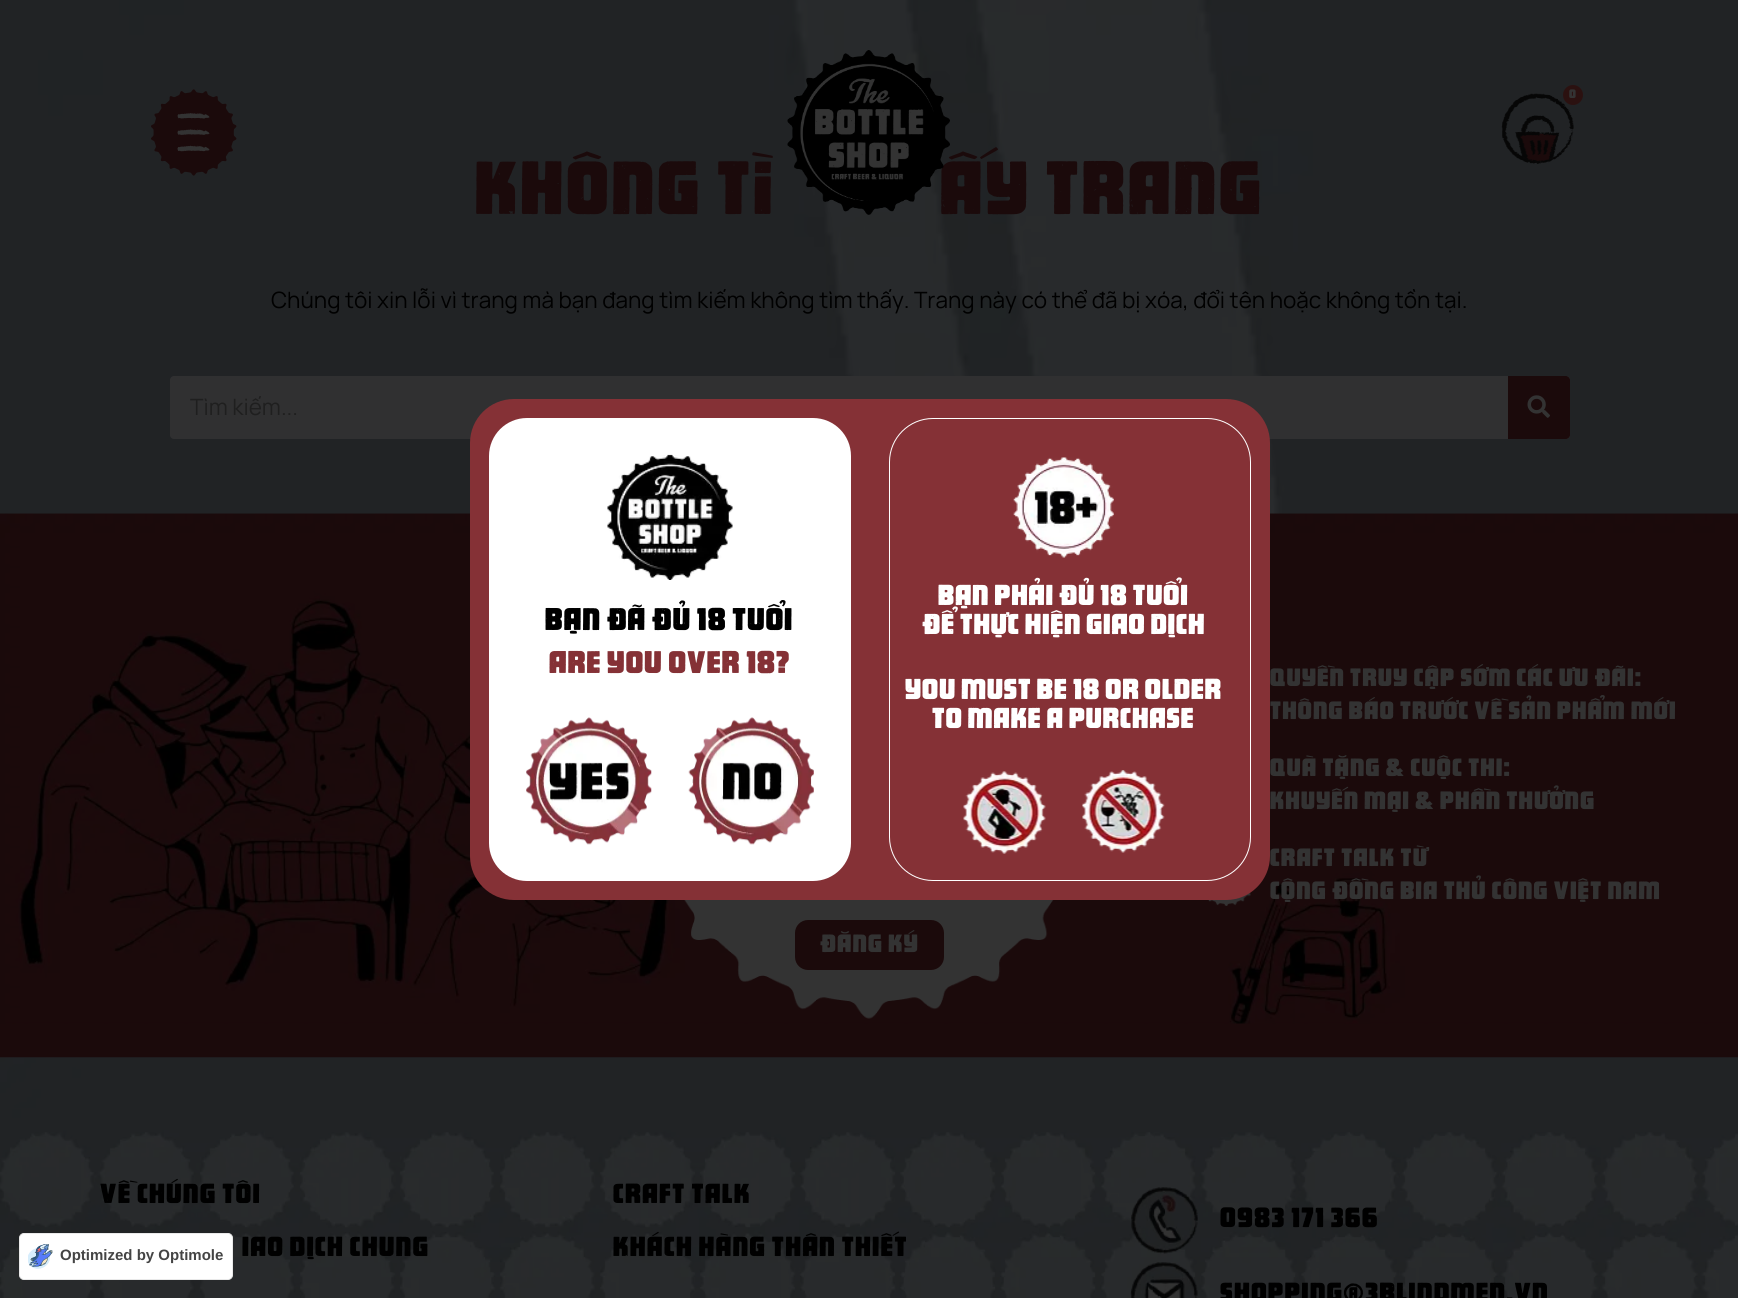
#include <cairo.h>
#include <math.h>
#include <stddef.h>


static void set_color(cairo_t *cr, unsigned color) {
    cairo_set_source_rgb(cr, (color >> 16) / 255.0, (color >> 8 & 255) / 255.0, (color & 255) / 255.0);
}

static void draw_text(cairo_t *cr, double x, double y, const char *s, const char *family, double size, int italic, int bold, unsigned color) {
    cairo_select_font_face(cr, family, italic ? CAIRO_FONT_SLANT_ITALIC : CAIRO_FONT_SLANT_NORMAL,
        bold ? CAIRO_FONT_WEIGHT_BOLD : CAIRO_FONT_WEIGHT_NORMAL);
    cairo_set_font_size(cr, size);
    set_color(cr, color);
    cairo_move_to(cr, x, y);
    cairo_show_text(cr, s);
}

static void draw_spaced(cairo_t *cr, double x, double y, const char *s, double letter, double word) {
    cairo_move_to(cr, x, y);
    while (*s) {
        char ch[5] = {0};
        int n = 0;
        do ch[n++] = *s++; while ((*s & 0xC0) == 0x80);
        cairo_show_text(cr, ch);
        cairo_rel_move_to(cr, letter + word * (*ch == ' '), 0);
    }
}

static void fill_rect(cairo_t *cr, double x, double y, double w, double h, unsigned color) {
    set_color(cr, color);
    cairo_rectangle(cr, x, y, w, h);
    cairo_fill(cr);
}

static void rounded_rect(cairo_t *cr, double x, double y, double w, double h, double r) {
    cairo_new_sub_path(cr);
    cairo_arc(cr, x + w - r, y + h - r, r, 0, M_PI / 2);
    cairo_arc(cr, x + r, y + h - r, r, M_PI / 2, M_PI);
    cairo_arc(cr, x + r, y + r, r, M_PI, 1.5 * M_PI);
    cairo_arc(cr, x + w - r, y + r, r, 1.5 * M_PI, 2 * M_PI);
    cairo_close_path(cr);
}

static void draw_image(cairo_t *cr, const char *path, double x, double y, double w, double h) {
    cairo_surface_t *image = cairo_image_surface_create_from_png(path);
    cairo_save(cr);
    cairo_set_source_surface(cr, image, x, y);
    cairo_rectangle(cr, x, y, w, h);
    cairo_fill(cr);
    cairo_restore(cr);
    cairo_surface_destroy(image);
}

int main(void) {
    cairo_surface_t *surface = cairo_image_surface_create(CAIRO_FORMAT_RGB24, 1738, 1298);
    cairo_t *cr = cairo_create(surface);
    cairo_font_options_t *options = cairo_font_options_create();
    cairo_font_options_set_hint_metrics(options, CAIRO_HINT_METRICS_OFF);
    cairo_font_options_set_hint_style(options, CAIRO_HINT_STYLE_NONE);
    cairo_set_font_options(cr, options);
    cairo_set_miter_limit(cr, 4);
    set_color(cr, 0xFFFFFF);
    cairo_paint(cr);
    draw_image(cr, "assets/img1.png", 0, 0, 1738, 514);
    draw_image(cr, "assets/img2.png", 151, 89, 86, 87);
    cairo_select_font_face(cr, "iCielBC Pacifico", CAIRO_FONT_SLANT_NORMAL, CAIRO_FONT_WEIGHT_NORMAL);
    cairo_set_font_size(cr, 75);
    set_color(cr, 0x1B0A0B);
    draw_spaced(cr, 940, 214, "ấy trang", -0.6, 0);
    draw_image(cr, "assets/img3.png", 787, 50, 163, 165);
    draw_image(cr, "assets/img4.png", 1501, 93, 73, 71);
    set_color(cr, 0x2B1110);
    cairo_arc(cr, 1573, 95, 10, 0, 2 * M_PI);
    cairo_fill(cr);
    draw_text(cr, 1569, 98, "0", "iCielBC Pacifico", 12, 0, 0, 0x333333);
    cairo_set_font_size(cr, 75);
    set_color(cr, 0x1B0A0B);
    draw_spaced(cr, 475, 214, "Không tì", -0.6, 0);
    draw_text(cr, 271, 308, "Chúng tôi xin lỗi vì trang mà bạn đang tìm kiếm không tìm thấy. Trang này có thể đã bị xóa, đổi tên hoặc không tồn tại.", "Manrope", 22.5, 0, 0, 0x000000);
    set_color(cr, 0x303031);
    rounded_rect(cr, 170, 376, 1400, 63, 4);
    cairo_fill(cr);
    draw_text(cr, 190, 415, "Tìm kiếm...", "Manrope", 22.5, 0, 0, 0x1F1F1F);
    set_color(cr, 0x1B0A0B);
    cairo_new_path(cr);
    cairo_move_to(cr, 1508, 376);
    cairo_line_to(cr, 1566, 376);
    cairo_curve_to(cr, 1568, 376, 1570, 378, 1570, 380);
    cairo_line_to(cr, 1570, 435);
    cairo_curve_to(cr, 1570, 437, 1568, 439, 1566, 439);
    cairo_line_to(cr, 1508, 439);
    cairo_close_path(cr);
    cairo_fill(cr);
    draw_image(cr, "assets/img5.png", 1527, 395, 23, 23);
    fill_rect(cr, 0, 1022, 1738, 36, 0x1B0A0B);
    draw_image(cr, "assets/img6.png", 0, 513, 1738, 511);
    draw_text(cr, 1270, 686, "Quyền truy cập sớm các ưu đãi:", "iCielBC Pacifico", 25, 0, 0, 0x333333);
    draw_text(cr, 1270, 719, "thông báo trước về sản phẩm mới", "iCielBC Pacifico", 25, 0, 0, 0x333333);
    draw_text(cr, 1270, 776, "Quà tặng & cuộc thi:", "iCielBC Pacifico", 25, 0, 0, 0x333333);
    draw_text(cr, 1270, 809, "khuyến mại & phần thưởng", "iCielBC Pacifico", 25, 0, 0, 0x333333);
    draw_image(cr, "assets/img7.png", 1208, 888, 48, 18);
    draw_text(cr, 1270, 866, "Craft Talk từ", "iCielBC Pacifico", 25, 0, 0, 0x333333);
    draw_text(cr, 1270, 899, "cộng đồng bia thủ công Việt Nam", "iCielBC Pacifico", 25, 0, 0, 0x333333);
    draw_image(cr, "assets/img8.png", 684, 900, 370, 119);
    set_color(cr, 0x1B0A0B);
    rounded_rect(cr, 795, 920, 149, 50, 13);
    cairo_fill(cr);
    draw_text(cr, 820, 952, "ĐĂNG KÝ", "iCielBC Pacifico", 25, 0, 0, 0x333333);
    draw_image(cr, "assets/img9.png", 0, 1057, 1738, 241);
    draw_text(cr, 100, 1203, "VỀ CHÚNG TÔI", "iCielBC Pacifico", 27.5, 0, 0, 0x000000);
    draw_text(cr, 242, 1256, "iao dịch chung", "iCielBC Pacifico", 27.5, 0, 0, 0x000000);
    draw_text(cr, 613, 1203, "Craft talk", "iCielBC Pacifico", 27.5, 0, 0, 0x000000);
    draw_text(cr, 613, 1256, "Khách hàng thân thiết", "iCielBC Pacifico", 27.5, 0, 0, 0x000000);
    draw_image(cr, "assets/img10.png", 1131, 1187, 67, 67);
    draw_text(cr, 1220, 1227, "0983 171 366", "iCielBC Pacifico", 27.5, 0, 0, 0x000000);
    draw_image(cr, "assets/img11.png", 1130, 1262, 68, 36);
    draw_text(cr, 1220, 1302, "shopping@3blindmen.vn", "iCielBC Pacifico", 27.5, 0, 0, 0x000000);
    set_color(cr, 0x853136);
    rounded_rect(cr, 470, 399, 800, 501, 44);
    cairo_fill(cr);
    set_color(cr, 0xFFFFFF);
    rounded_rect(cr, 489, 418, 362, 463, 38);
    cairo_fill(cr);
    draw_image(cr, "assets/img12.png", 607, 454, 126, 126);
    cairo_set_font_size(cr, 31.25);
    set_color(cr, 0x000000);
    draw_spaced(cr, 545, 630, "BẠN ĐÃ ĐỦ 18 TUỔI", -0.6, 0);
    set_color(cr, 0x853136);
    draw_spaced(cr, 549, 673, "Are you over 18?", -0.6, 0);
    draw_image(cr, "assets/img13.png", 526, 717, 126, 128);
    draw_image(cr, "assets/img14.png", 688, 717, 126, 128);
    rounded_rect(cr, 889.5, 418.5, 361, 462, 43.5);
    set_color(cr, 0xFFFFFF);
    cairo_set_line_width(cr, 1);
    cairo_stroke(cr);
    draw_image(cr, "assets/img15.png", 1013, 457, 101, 101);
    cairo_set_font_size(cr, 28.75);
    draw_spaced(cr, 938, 605, "Bạn phải đủ 18 tuổi", -0.6, 0);
    draw_spaced(cr, 922, 634, "để thực hiện giao dịch", -0.6, 0);
    draw_spaced(cr, 905, 699, "You must be 18 or older", -0.6, 0);
    draw_spaced(cr, 932, 728, "to make a purchase", -0.6, 0);
    draw_image(cr, "assets/img16.png", 963, 771, 83, 83);
    draw_image(cr, "assets/img17.png", 1082, 770, 83, 83);
    rounded_rect(cr, 19.5, 1233.5, 213, 46, 4.5);
    cairo_fill_preserve(cr);
    set_color(cr, 0xE9E9E9);
    cairo_stroke(cr);
    draw_image(cr, "assets/img18.png", 28, 1244, 25, 25);
    draw_text(cr, 60, 1260, "Optimized by Optimole", "Liberation Sans", 15, 0, 1, 0x444444);
    cairo_surface_write_to_png(surface, "output.png");
    cairo_font_options_destroy(options);
    cairo_destroy(cr);
    cairo_surface_destroy(surface);
    return 0;
}
